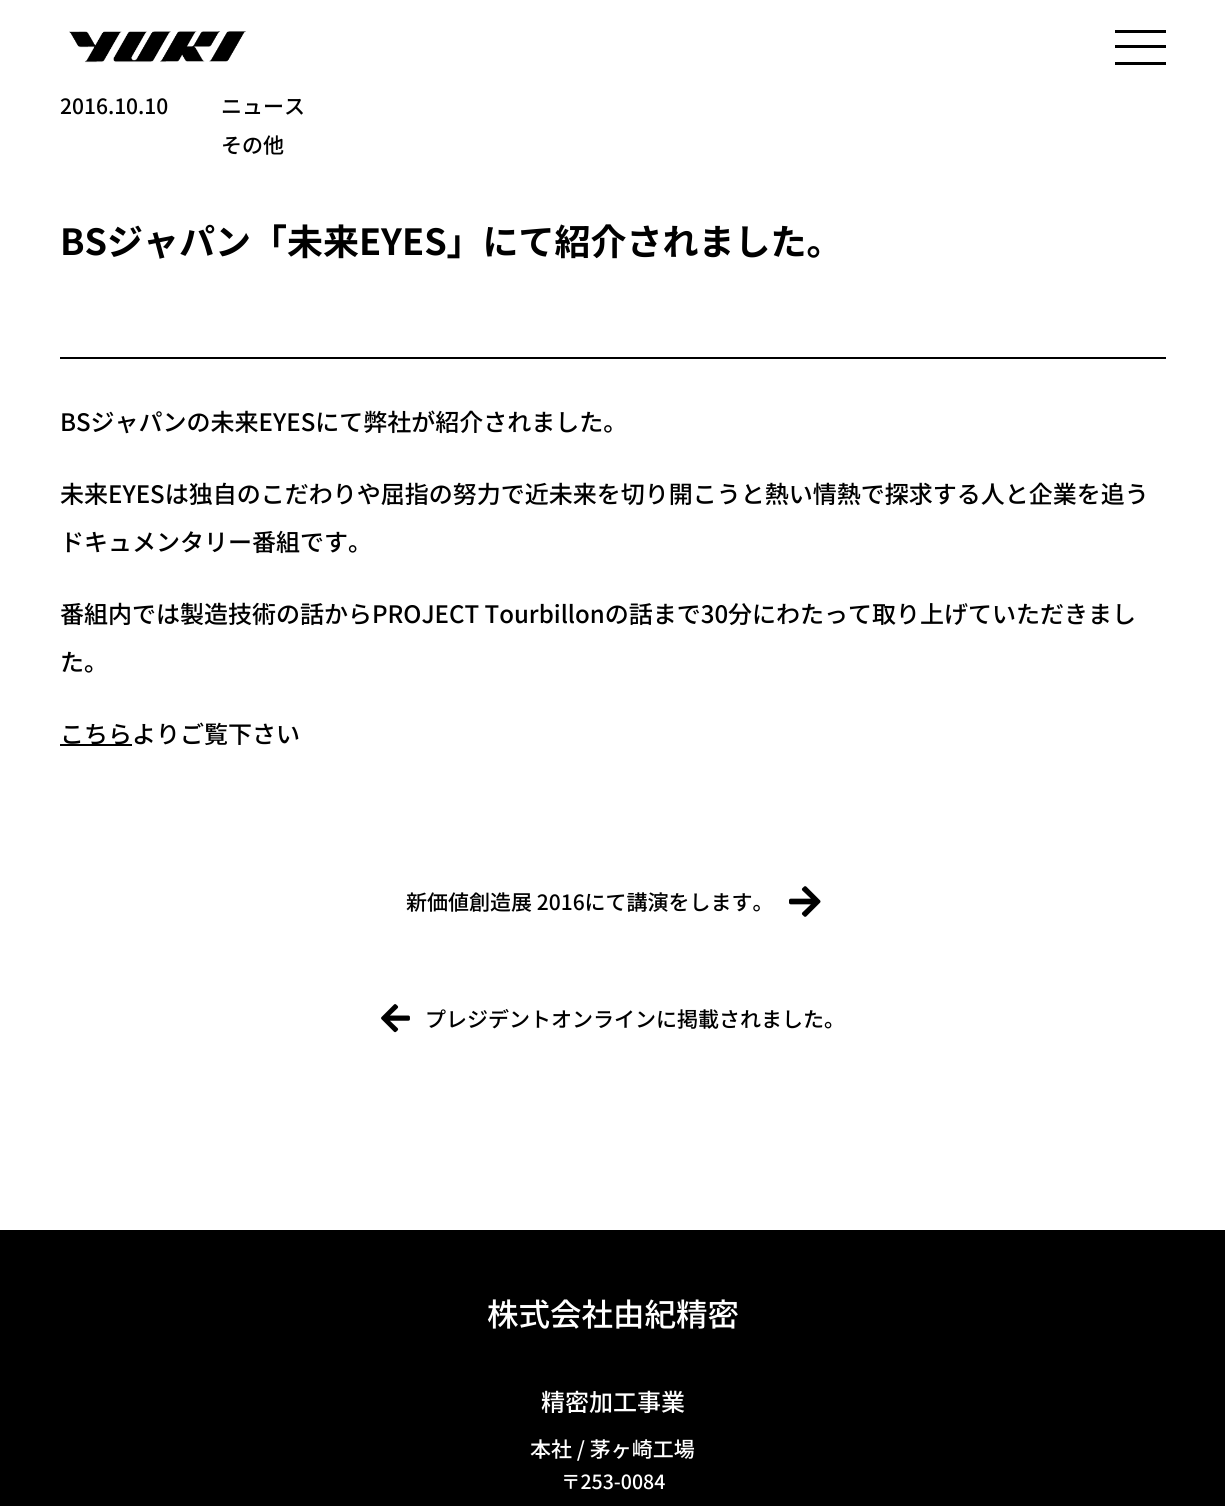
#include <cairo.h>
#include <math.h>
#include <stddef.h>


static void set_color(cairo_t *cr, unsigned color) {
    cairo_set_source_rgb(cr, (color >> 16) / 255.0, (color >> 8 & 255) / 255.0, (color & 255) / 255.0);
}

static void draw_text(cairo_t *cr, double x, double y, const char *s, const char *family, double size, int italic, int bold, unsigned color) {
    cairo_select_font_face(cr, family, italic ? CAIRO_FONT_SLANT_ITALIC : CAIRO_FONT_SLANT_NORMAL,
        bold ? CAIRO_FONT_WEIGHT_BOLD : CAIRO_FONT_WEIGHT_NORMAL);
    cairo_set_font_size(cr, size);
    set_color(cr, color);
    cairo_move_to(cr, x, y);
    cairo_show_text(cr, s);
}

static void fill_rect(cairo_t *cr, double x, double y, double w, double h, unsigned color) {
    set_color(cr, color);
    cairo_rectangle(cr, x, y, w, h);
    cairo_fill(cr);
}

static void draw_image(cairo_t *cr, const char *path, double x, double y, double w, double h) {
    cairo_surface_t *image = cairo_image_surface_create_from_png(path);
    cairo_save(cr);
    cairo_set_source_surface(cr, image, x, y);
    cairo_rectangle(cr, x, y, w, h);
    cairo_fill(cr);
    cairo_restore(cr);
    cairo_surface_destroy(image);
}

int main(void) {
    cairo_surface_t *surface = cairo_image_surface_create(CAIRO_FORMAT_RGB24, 1225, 1506);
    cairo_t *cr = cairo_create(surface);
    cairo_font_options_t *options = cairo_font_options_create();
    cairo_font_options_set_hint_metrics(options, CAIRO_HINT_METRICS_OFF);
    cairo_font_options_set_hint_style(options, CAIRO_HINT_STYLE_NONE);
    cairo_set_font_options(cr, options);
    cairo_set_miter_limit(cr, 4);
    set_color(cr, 0xFFFFFF);
    cairo_paint(cr);
    draw_image(cr, "assets/img1.png", 69, 31, 177, 32);
    fill_rect(cr, 1115, 30, 51, 3, 0x000000);
    fill_rect(cr, 1115, 45, 51, 3, 0x000000);
    fill_rect(cr, 1115, 62, 51, 3, 0x000000);
    draw_text(cr, 60, 114, "2016.10.10", "Noto Sans JP Medium", 21, 0, 0, 0x000000);
    draw_text(cr, 221, 114, "ニュース", "Noto Sans JP Medium", 21, 0, 0, 0x000000);
    draw_text(cr, 221, 153, "その他", "Noto Sans JP Medium", 21, 0, 0, 0x000000);
    draw_text(cr, 60, 255, "BSジャパン「未来EYES」にて紹介されました。", "Noto Sans JP", 36, 0, 1, 0x000000);
    fill_rect(cr, 60, 357, 1106, 2, 0x000000);
    draw_text(cr, 60, 431, "BSジャパンの未来EYESにて弊社が紹介されました。", "Noto Sans JP Medium", 24, 0, 0, 0x000000);
    draw_text(cr, 60, 503, "未来EYESは独自のこだわりや屈指の努力で近未来を切り開こうと熱い情熱で探求する人と企業を追う", "Noto Sans JP Medium", 24, 0, 0, 0x000000);
    draw_text(cr, 60, 551, "ドキュメンタリー番組です。", "Noto Sans JP Medium", 24, 0, 0, 0x000000);
    draw_text(cr, 60, 623, "番組内では製造技術の話からPROJECT Tourbillonの話まで30分にわたって取り上げていただきまし", "Noto Sans JP Medium", 24, 0, 0, 0x000000);
    draw_text(cr, 60, 671, "た。", "Noto Sans JP Medium", 24, 0, 0, 0x000000);
    fill_rect(cr, 60, 744, 72, 2, 0x000000);
    draw_text(cr, 60, 743, "こちらよりご覧下さい", "Noto Sans JP Medium", 24, 0, 0, 0x000000);
    draw_text(cr, 406, 910, "新価値創造展 2016にて講演をします。", "Noto Sans JP Medium", 21, 0, 0, 0x000000);
    draw_image(cr, "assets/img2.png", 789, 886, 32, 31);
    draw_image(cr, "assets/img3.png", 381, 1004, 29, 29);
    draw_text(cr, 425, 1027, "プレジデントオンラインに掲載されました。", "Noto Sans JP Medium", 21, 0, 0, 0x000000);
    fill_rect(cr, 0, 1230, 1225, 276, 0x000000);
    draw_text(cr, 487, 1326, "株式会社由紀精密", "Noto Sans JP Medium", 31.5, 0, 0, 0xFFFFFF);
    draw_text(cr, 541, 1411, "精密加工事業", "Noto Sans JP Medium", 24, 0, 0, 0xFFFFFF);
    draw_text(cr, 530, 1457, "本社 / 茅ヶ崎工場", "Noto Sans JP Medium", 21, 0, 0, 0xFFFFFF);
    draw_text(cr, 561, 1489, "〒253-0084", "Noto Sans JP Medium", 19.5, 0, 0, 0xFFFFFF);
    cairo_surface_write_to_png(surface, "output.png");
    cairo_font_options_destroy(options);
    cairo_destroy(cr);
    cairo_surface_destroy(surface);
    return 0;
}
